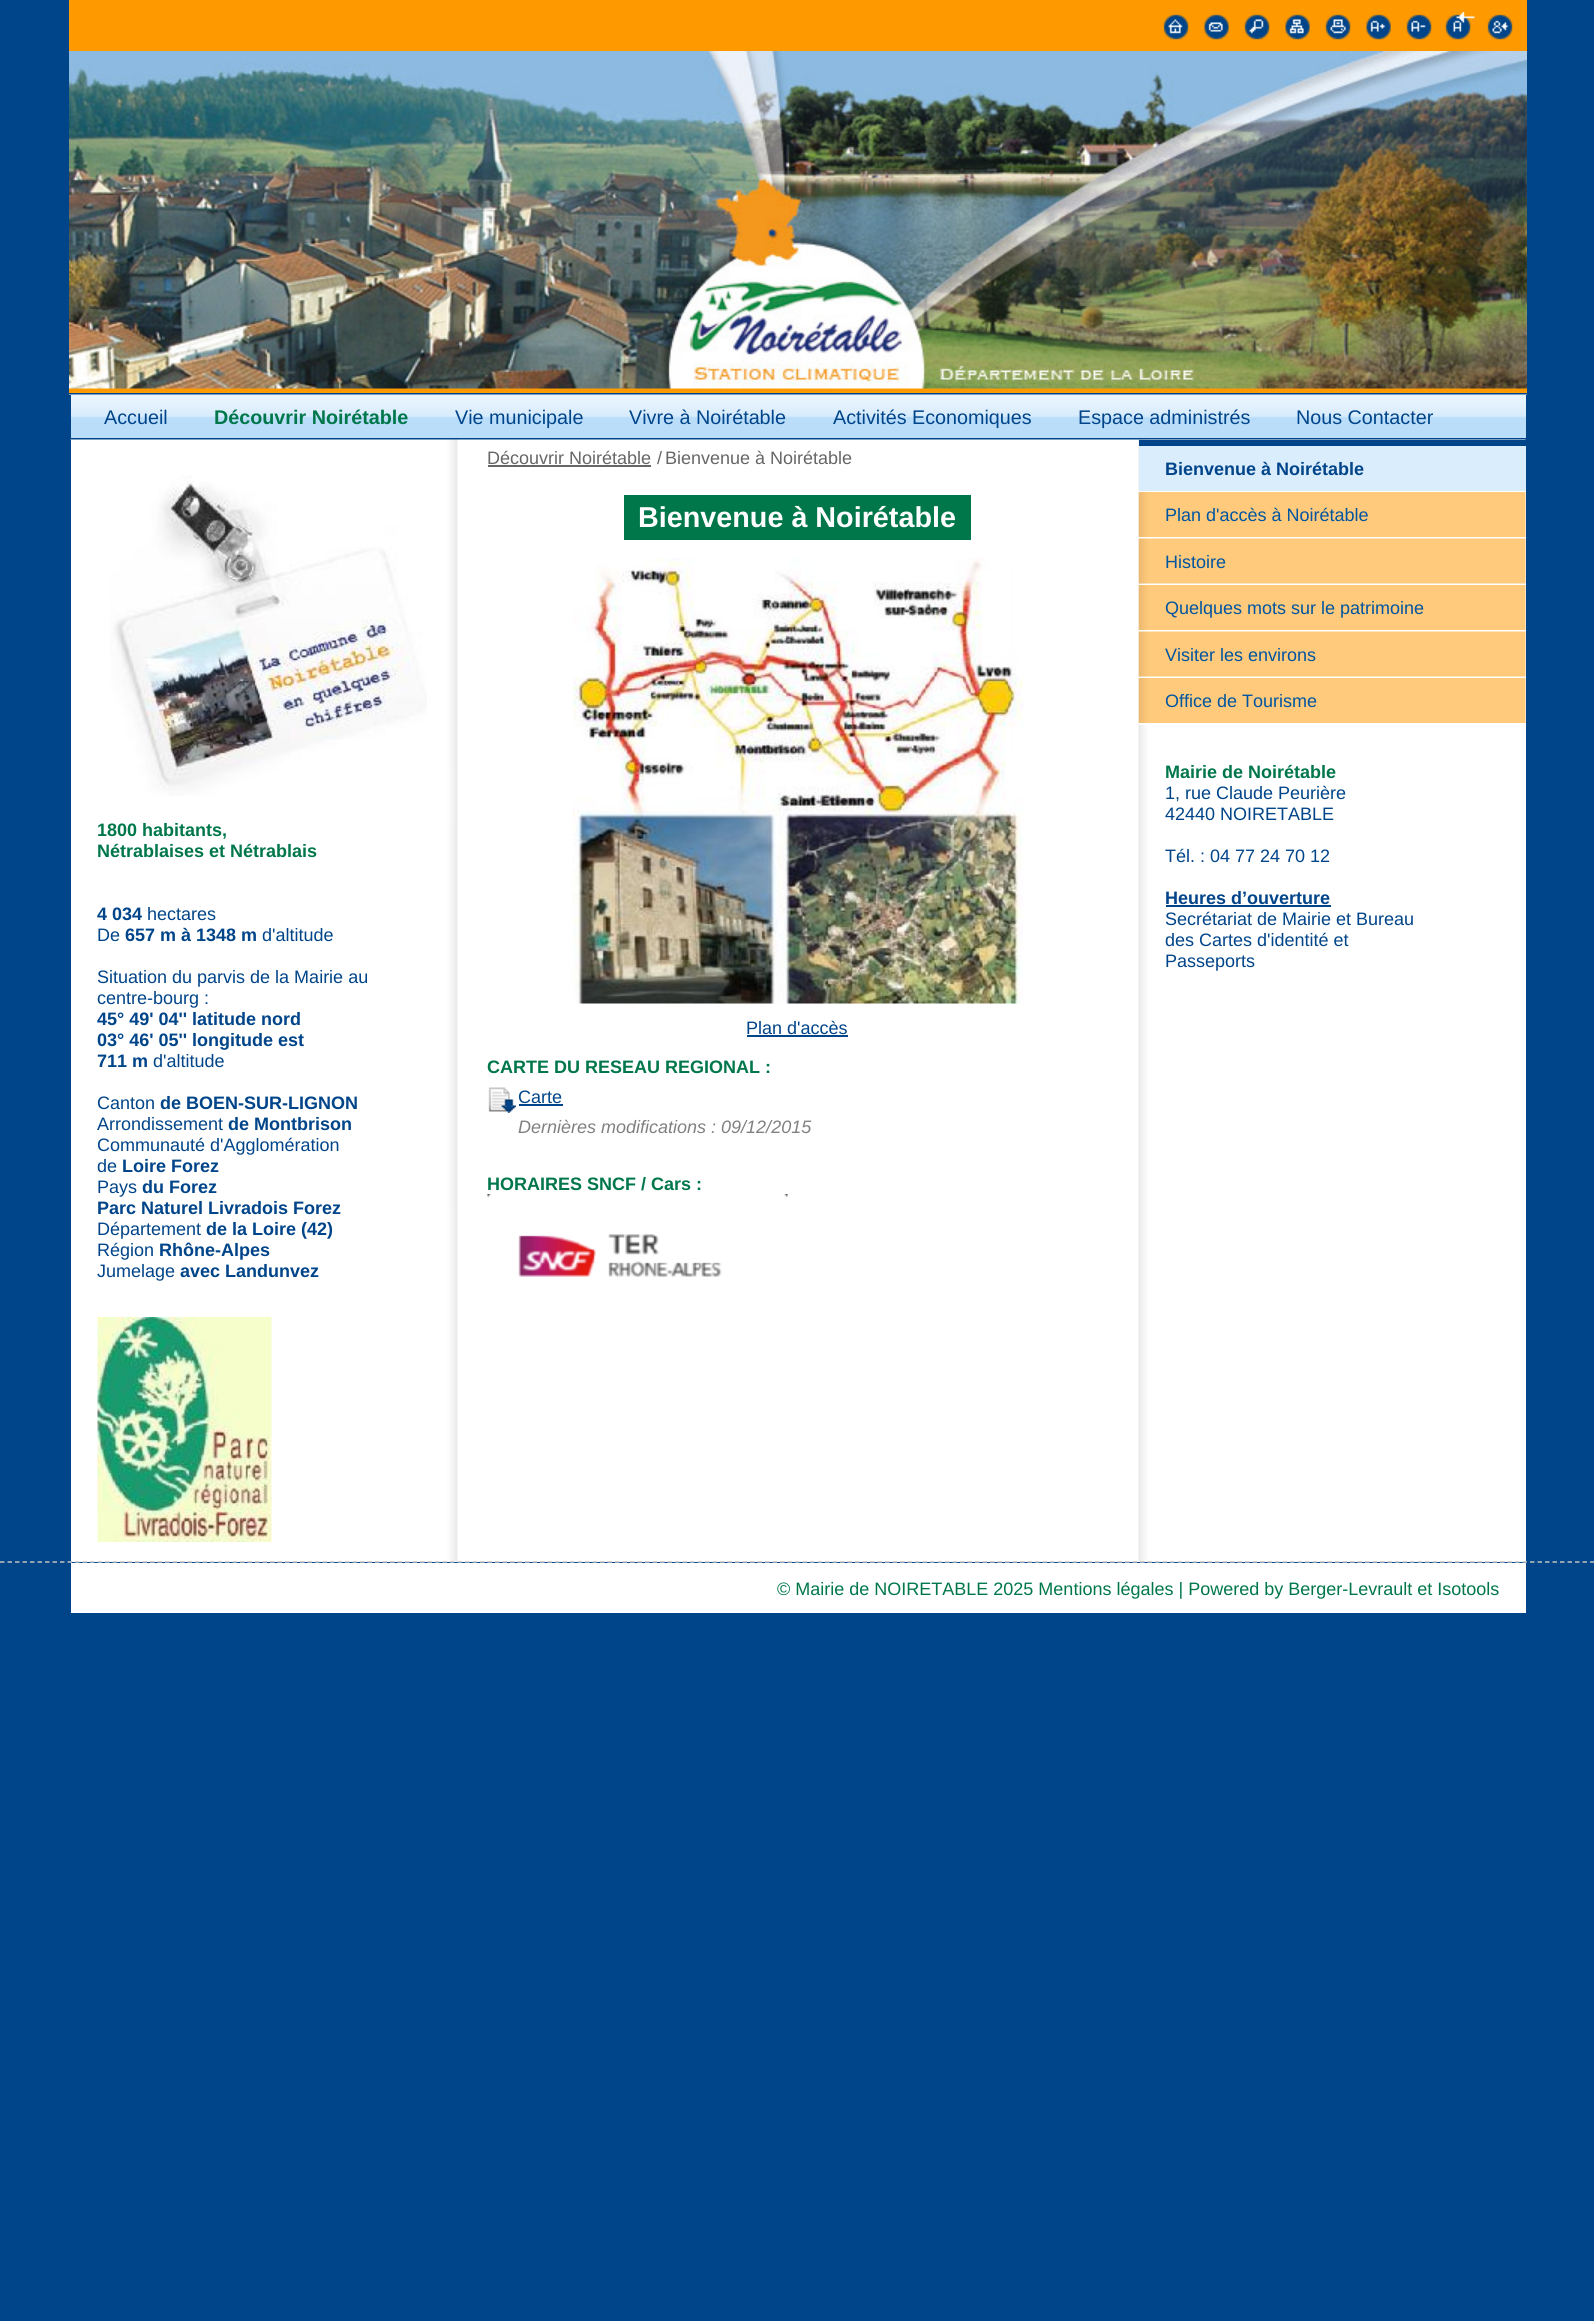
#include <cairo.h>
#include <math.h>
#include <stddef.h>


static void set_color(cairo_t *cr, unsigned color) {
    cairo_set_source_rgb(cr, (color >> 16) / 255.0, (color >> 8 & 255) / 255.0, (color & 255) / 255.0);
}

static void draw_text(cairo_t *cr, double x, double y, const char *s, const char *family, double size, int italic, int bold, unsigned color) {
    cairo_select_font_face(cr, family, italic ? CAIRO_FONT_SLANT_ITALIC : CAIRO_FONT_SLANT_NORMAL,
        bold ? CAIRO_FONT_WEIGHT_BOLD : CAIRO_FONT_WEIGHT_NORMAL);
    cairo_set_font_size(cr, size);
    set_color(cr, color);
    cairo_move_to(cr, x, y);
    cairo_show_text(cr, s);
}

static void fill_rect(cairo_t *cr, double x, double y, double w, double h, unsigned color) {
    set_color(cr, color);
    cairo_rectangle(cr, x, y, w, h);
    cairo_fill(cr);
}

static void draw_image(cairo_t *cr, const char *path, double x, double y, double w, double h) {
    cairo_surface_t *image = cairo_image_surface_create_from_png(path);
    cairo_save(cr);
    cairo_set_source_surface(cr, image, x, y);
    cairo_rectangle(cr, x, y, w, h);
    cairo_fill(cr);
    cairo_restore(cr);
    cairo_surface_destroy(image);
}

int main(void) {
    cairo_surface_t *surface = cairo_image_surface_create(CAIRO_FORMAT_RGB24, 1594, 2321);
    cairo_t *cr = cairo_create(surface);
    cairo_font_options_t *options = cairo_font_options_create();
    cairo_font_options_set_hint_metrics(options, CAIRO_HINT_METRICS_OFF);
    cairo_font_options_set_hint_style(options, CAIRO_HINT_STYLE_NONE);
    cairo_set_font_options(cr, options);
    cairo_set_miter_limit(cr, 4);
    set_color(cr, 0x004489);
    cairo_paint(cr);
    fill_rect(cr, 69, 0, 1458, 393, 0xFF9900);
    draw_image(cr, "assets/img1.png", 1163, 14, 26, 26);
    draw_image(cr, "assets/img2.png", 1204, 14, 25, 26);
    draw_image(cr, "assets/img3.png", 1244, 14, 26, 26);
    draw_image(cr, "assets/img4.png", 1285, 14, 25, 26);
    draw_image(cr, "assets/img5.png", 1325, 14, 26, 26);
    draw_image(cr, "assets/img6.png", 1366, 14, 25, 26);
    draw_image(cr, "assets/img7.png", 1406, 14, 26, 26);
    draw_image(cr, "assets/img8.png", 1445, 12, 30, 28);
    draw_image(cr, "assets/img9.png", 1487, 14, 26, 26);
    draw_image(cr, "assets/img10.png", 69, 51, 1458, 338);
    fill_rect(cr, 71, 418, 1455, 20, 0xBADDFA);
    draw_image(cr, "assets/img11.png", 69, 394, 1458, 24);
    fill_rect(cr, 1526, 395, 1, 23, 0x004489);
    fill_rect(cr, 69, 395, 2, 23, 0x004489);
    draw_text(cr, 104, 424, "Accueil", "Liberation Sans", 19.75, 0, 0, 0x004489);
    draw_text(cr, 214, 424, "Découvrir Noirétable", "Liberation Sans", 19.75, 0, 1, 0x00774B);
    draw_text(cr, 455, 424, "Vie municipale", "Liberation Sans", 19.75, 0, 0, 0x004489);
    draw_text(cr, 629, 424, "Vivre à Noirétable", "Liberation Sans", 19.75, 0, 0, 0x004489);
    draw_text(cr, 833, 424, "Activités Economiques", "Liberation Sans", 19.75, 0, 0, 0x004489);
    draw_text(cr, 1078, 424, "Espace administrés", "Liberation Sans", 19.75, 0, 0, 0x004489);
    draw_text(cr, 1296, 424, "Nous Contacter", "Liberation Sans", 19.75, 0, 0, 0x004489);
    fill_rect(cr, 71, 493, 1455, 1069, 0xFFFFFF);
    draw_image(cr, "assets/img12.png", 70, 439, 1456, 1123);
    fill_rect(cr, 70, 440, 1, 1122, 0x004489);
    draw_text(cr, 487, 464, "Découvrir Noirétable", "Liberation Sans", 18, 0, 0, 0x666666);
    fill_rect(cr, 488, 465, 163, 2, 0x666666);
    draw_text(cr, 657, 464, "/", "Liberation Sans", 18, 0, 0, 0x666666);
    draw_text(cr, 665, 464, "Bienvenue à Noirétable", "Liberation Sans", 18, 0, 0, 0x666666);
    fill_rect(cr, 624, 495, 347, 45, 0x00774B);
    draw_text(cr, 638, 527, "Bienvenue à Noirétable", "Liberation Sans", 28.75, 0, 1, 0xFFFFFF);
    draw_image(cr, "assets/img13.png", 573, 558, 450, 446);
    draw_text(cr, 746, 1034, "Plan d'accès", "Liberation Sans", 18, 0, 0, 0x004489);
    fill_rect(cr, 747, 1035, 101, 2, 0x004489);
    draw_text(cr, 487, 1073, "CARTE DU RESEAU REGIONAL :", "Liberation Sans", 18, 0, 1, 0x00774B);
    draw_image(cr, "assets/img14.png", 488, 1087, 28, 26);
    draw_text(cr, 518, 1103, "Carte", "Liberation Sans", 18, 0, 0, 0x004489);
    fill_rect(cr, 519, 1104, 44, 2, 0x004489);
    draw_text(cr, 518, 1133, "Dernières modifications : 09/12/2015", "Liberation Sans", 18, 1, 0, 0x808080);
    draw_text(cr, 487, 1190, "HORAIRES SNCF / Cars :", "Liberation Sans", 18, 0, 1, 0x00774B);
    draw_image(cr, "assets/img15.png", 487, 1194, 301, 83);
    fill_rect(cr, 1139, 440, 387, 6, 0x004489);
    fill_rect(cr, 1139, 491, 387, 2, 0xFFFFFF);
    fill_rect(cr, 1139, 446, 387, 45, 0xDAEDFC);
    draw_text(cr, 1165, 475, "Bienvenue à Noirétable", "Liberation Sans", 18, 0, 1, 0x004489);
    fill_rect(cr, 1139, 537, 9, 2, 0xFFFFFF);
    draw_image(cr, "assets/img16.png", 1138, 492, 388, 45);
    draw_text(cr, 1165, 521, "Plan d'accès à Noirétable", "Liberation Sans", 18, 0, 0, 0x0055A0);
    fill_rect(cr, 1139, 584, 9, 2, 0xFFFFFF);
    draw_image(cr, "assets/img17.png", 1138, 538, 388, 46);
    draw_text(cr, 1165, 568, "Histoire", "Liberation Sans", 18, 0, 0, 0x0055A0);
    fill_rect(cr, 1139, 630, 9, 2, 0xFFFFFF);
    draw_image(cr, "assets/img16.png", 1138, 585, 388, 45);
    draw_text(cr, 1165, 614, "Quelques mots sur le patrimoine", "Liberation Sans", 18, 0, 0, 0x0055A0);
    fill_rect(cr, 1139, 677, 9, 2, 0xFFFFFF);
    draw_image(cr, "assets/img17.png", 1138, 631, 388, 46);
    draw_text(cr, 1165, 661, "Visiter les environs", "Liberation Sans", 18, 0, 0, 0x0055A0);
    fill_rect(cr, 1139, 723, 9, 2, 0xFFFFFF);
    draw_image(cr, "assets/img16.png", 1138, 678, 388, 45);
    draw_text(cr, 1165, 707, "Office de Tourisme", "Liberation Sans", 18, 0, 0, 0x0055A0);
    draw_text(cr, 1165, 778, "Mairie de Noirétable", "Liberation Sans", 18, 0, 1, 0x00774B);
    draw_text(cr, 1165, 799, "1, rue Claude Peurière", "Liberation Sans", 18, 0, 0, 0x004489);
    draw_text(cr, 1165, 820, "42440 NOIRETABLE", "Liberation Sans", 18, 0, 0, 0x004489);
    draw_text(cr, 1165, 862, "Tél. : 04 77 24 70 12", "Liberation Sans", 18, 0, 0, 0x004489);
    draw_text(cr, 1165, 904, "Heures d’ouverture", "Liberation Sans", 18, 0, 1, 0x004489);
    fill_rect(cr, 1166, 905, 165, 2, 0x004489);
    draw_text(cr, 1165, 925, "Secrétariat de Mairie et Bureau", "Liberation Sans", 18, 0, 0, 0x004489);
    draw_text(cr, 1165, 946, "des Cartes d'identité et", "Liberation Sans", 18, 0, 0, 0x004489);
    draw_text(cr, 1165, 967, "Passeports", "Liberation Sans", 18, 0, 0, 0x004489);
    draw_image(cr, "assets/img18.png", 110, 475, 317, 321);
    draw_text(cr, 97, 836, "1800 habitants,", "Liberation Sans", 18, 0, 1, 0x00774B);
    draw_text(cr, 97, 857, "Nétrablaises et Nétrablais", "Liberation Sans", 18, 0, 1, 0x00774B);
    draw_text(cr, 97, 920, "4 034", "Liberation Sans", 18, 0, 1, 0x004489);
    draw_text(cr, 147, 920, "hectares", "Liberation Sans", 18, 0, 0, 0x004489);
    draw_text(cr, 97, 941, "De", "Liberation Sans", 18, 0, 0, 0x004489);
    draw_text(cr, 125, 941, "657 m à 1348 m", "Liberation Sans", 18, 0, 1, 0x004489);
    draw_text(cr, 262, 941, "d'altitude", "Liberation Sans", 18, 0, 0, 0x004489);
    draw_text(cr, 97, 983, "Situation du parvis de la Mairie au", "Liberation Sans", 18, 0, 0, 0x004489);
    draw_text(cr, 97, 1004, "centre-bourg :", "Liberation Sans", 18, 0, 0, 0x004489);
    draw_text(cr, 97, 1025, "45° 49' 04'' latitude nord", "Liberation Sans", 18, 0, 1, 0x004489);
    draw_text(cr, 97, 1046, "03° 46' 05'' longitude est", "Liberation Sans", 18, 0, 1, 0x004489);
    draw_text(cr, 97, 1067, "711 m", "Liberation Sans", 18, 0, 1, 0x004489);
    draw_text(cr, 153, 1067, "d'altitude", "Liberation Sans", 18, 0, 0, 0x004489);
    draw_text(cr, 97, 1109, "Canton", "Liberation Sans", 18, 0, 0, 0x004489);
    draw_text(cr, 160, 1109, "de BOEN-SUR-LIGNON", "Liberation Sans", 18, 0, 1, 0x004489);
    draw_text(cr, 97, 1130, "Arrondissement", "Liberation Sans", 18, 0, 0, 0x004489);
    draw_text(cr, 228, 1130, "de Montbrison", "Liberation Sans", 18, 0, 1, 0x004489);
    draw_text(cr, 97, 1151, "Communauté d'Agglomération", "Liberation Sans", 18, 0, 0, 0x004489);
    draw_text(cr, 97, 1172, "de", "Liberation Sans", 18, 0, 0, 0x004489);
    draw_text(cr, 122, 1172, "Loire Forez", "Liberation Sans", 18, 0, 1, 0x004489);
    draw_text(cr, 97, 1193, "Pays", "Liberation Sans", 18, 0, 0, 0x004489);
    draw_text(cr, 142, 1193, "du Forez", "Liberation Sans", 18, 0, 1, 0x004489);
    draw_text(cr, 97, 1214, "Parc Naturel Livradois Forez", "Liberation Sans", 18, 0, 1, 0x004489);
    draw_text(cr, 97, 1235, "Département", "Liberation Sans", 18, 0, 0, 0x004489);
    draw_text(cr, 206, 1235, "de la Loire (42)", "Liberation Sans", 18, 0, 1, 0x004489);
    draw_text(cr, 97, 1256, "Région", "Liberation Sans", 18, 0, 0, 0x004489);
    draw_text(cr, 159, 1256, "Rhône-Alpes", "Liberation Sans", 18, 0, 1, 0x004489);
    draw_text(cr, 97, 1277, "Jumelage", "Liberation Sans", 18, 0, 0, 0x004489);
    draw_text(cr, 180, 1277, "avec Landunvez", "Liberation Sans", 18, 0, 1, 0x004489);
    draw_image(cr, "assets/img19.png", 97, 1317, 175, 225);
    cairo_new_path(cr);
    cairo_move_to(cr, 0, 1562);
    cairo_line_to(cr, 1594.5, 1562);
    set_color(cr, 0xC0C0C0);
    cairo_set_line_width(cr, 1.5);
    cairo_set_dash(cr, (double[]){4.5, 3}, 2, 0);
    cairo_stroke(cr);
    fill_rect(cr, 71, 1563, 1455, 50, 0xFFFFFF);
    draw_text(cr, 777, 1595, "© Mairie de NOIRETABLE 2025 Mentions légales | Powered by Berger-Levrault et Isotools", "Liberation Sans", 18, 0, 0, 0x00774B);
    cairo_surface_write_to_png(surface, "output.png");
    cairo_font_options_destroy(options);
    cairo_destroy(cr);
    cairo_surface_destroy(surface);
    return 0;
}
